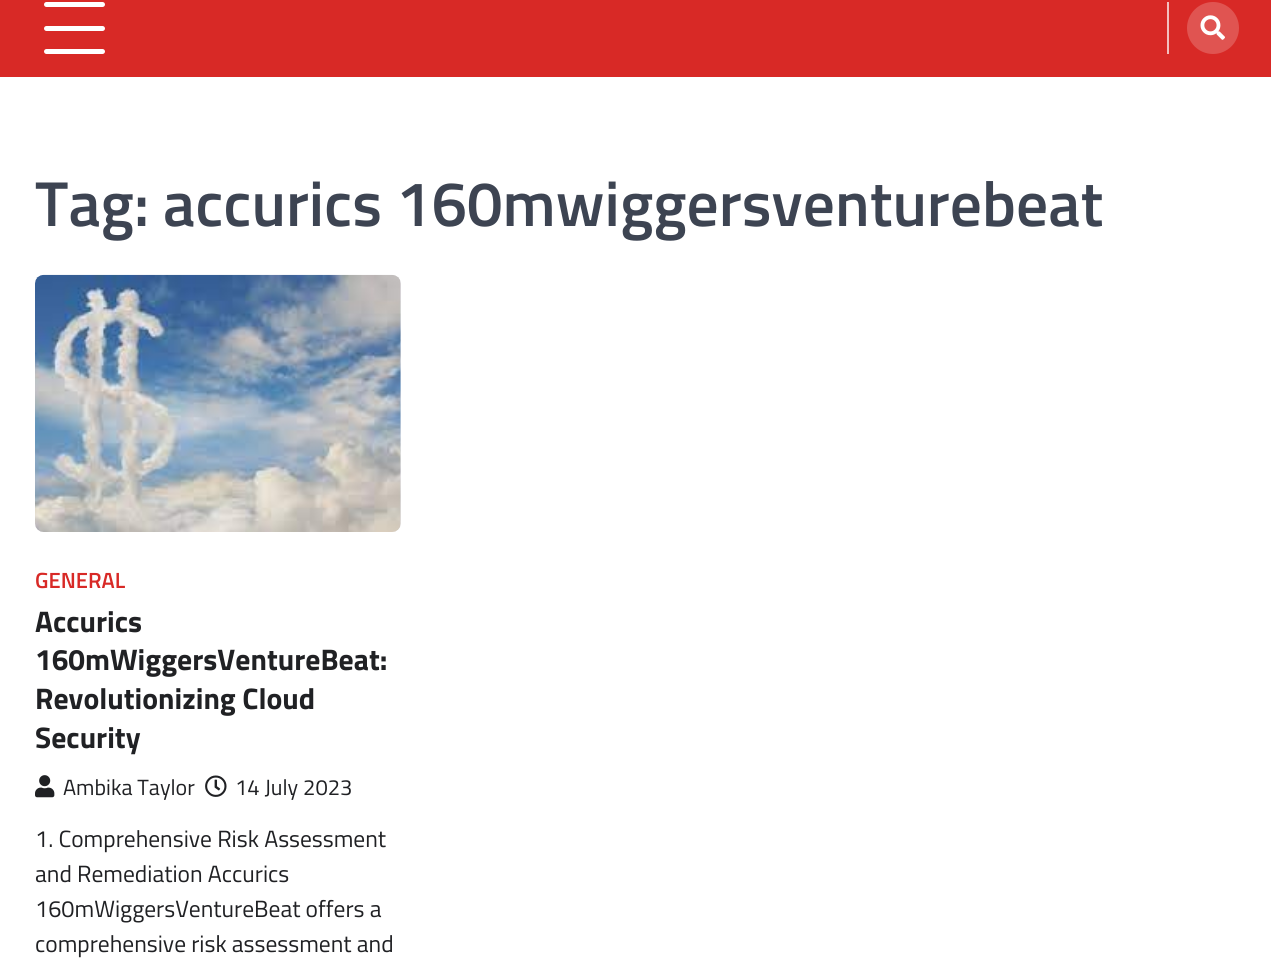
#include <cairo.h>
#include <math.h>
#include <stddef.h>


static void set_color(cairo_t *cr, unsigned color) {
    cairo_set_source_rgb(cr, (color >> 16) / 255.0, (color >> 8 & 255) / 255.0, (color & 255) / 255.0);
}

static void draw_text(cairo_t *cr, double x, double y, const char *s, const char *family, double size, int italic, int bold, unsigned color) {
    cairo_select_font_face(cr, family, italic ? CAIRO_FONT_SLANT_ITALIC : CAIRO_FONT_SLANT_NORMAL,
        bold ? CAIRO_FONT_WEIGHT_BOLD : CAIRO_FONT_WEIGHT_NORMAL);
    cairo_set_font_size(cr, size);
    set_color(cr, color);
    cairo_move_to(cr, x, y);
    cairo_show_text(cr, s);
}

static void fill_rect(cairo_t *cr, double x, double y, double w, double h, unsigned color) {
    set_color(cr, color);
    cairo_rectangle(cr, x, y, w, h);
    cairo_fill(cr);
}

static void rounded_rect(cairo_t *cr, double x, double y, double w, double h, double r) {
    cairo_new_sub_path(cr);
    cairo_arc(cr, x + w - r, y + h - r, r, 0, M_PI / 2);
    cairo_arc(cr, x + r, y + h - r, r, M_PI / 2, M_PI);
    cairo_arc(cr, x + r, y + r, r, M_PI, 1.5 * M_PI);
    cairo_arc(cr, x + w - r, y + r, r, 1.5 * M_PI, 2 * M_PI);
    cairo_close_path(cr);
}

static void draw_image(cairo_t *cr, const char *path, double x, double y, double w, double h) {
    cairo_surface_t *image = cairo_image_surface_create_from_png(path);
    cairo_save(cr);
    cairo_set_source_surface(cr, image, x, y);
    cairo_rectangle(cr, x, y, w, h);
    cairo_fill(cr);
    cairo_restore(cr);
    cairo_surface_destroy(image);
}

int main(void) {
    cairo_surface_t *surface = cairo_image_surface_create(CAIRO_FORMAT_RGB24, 1271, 959);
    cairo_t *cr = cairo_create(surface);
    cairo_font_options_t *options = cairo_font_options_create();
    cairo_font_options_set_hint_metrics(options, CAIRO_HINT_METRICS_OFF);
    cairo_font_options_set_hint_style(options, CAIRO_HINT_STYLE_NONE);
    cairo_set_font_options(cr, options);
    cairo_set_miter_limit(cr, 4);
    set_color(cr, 0xFFFFFF);
    cairo_paint(cr);
    fill_rect(cr, 0, 0, 1271, 77, 0xD82926);
    set_color(cr, 0xFFFFFF);
    rounded_rect(cr, 44, 2, 61, 5, 2.5);
    cairo_fill(cr);
    rounded_rect(cr, 44, 26, 61, 5, 2.5);
    cairo_fill(cr);
    rounded_rect(cr, 44, 49, 61, 5, 2.5);
    cairo_fill(cr);
    fill_rect(cr, 1167, 2, 2, 52, 0xF3BFBE);
    set_color(cr, 0xE05451);
    cairo_arc(cr, 1213, 28, 26, 0, 2 * M_PI);
    cairo_fill(cr);
    draw_image(cr, "assets/img1.png", 1200, 15, 25, 25);
    draw_text(cr, 35, 226, "Tag: accurics 160mwiggersventurebeat", "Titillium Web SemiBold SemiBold", 63.5, 0, 0, 0x3D4452);
    set_color(cr, 0xF0F2F7);
    rounded_rect(cr, 35, 275, 366, 257, 9);
    cairo_fill(cr);
    draw_image(cr, "assets/img2.png", 35, 274, 366, 258);
    draw_text(cr, 35, 588, "GENERAL", "Titillium Web SemiBold SemiBold", 22, 0, 0, 0xD82926);
    draw_text(cr, 35, 632, "Accurics", "Titillium Web", 29.75, 0, 1, 0x202124);
    draw_text(cr, 35, 670, "160mWiggersVentureBeat:", "Titillium Web", 29.75, 0, 1, 0x202124);
    draw_text(cr, 35, 709, "Revolutionizing Cloud", "Titillium Web", 29.75, 0, 1, 0x202124);
    draw_text(cr, 35, 748, "Security", "Titillium Web", 29.75, 0, 1, 0x202124);
    draw_image(cr, "assets/img3.png", 35, 775, 20, 23);
    draw_text(cr, 63, 795, "Ambika Taylor", "Titillium Web", 22, 0, 0, 0x202124);
    draw_image(cr, "assets/img4.png", 205, 775, 22, 22);
    draw_text(cr, 235, 795, "14 July 2023", "Titillium Web", 22, 0, 0, 0x202124);
    draw_text(cr, 35, 847, "1. Comprehensive Risk Assessment", "Titillium Web", 23.5, 0, 0, 0x202124);
    draw_text(cr, 35, 882, "and Remediation Accurics", "Titillium Web", 23.5, 0, 0, 0x202124);
    draw_text(cr, 35, 917, "160mWiggersVentureBeat offers a", "Titillium Web", 23.5, 0, 0, 0x202124);
    draw_text(cr, 35, 952, "comprehensive risk assessment and", "Titillium Web", 23.5, 0, 0, 0x202124);
    cairo_surface_write_to_png(surface, "output.png");
    cairo_font_options_destroy(options);
    cairo_destroy(cr);
    cairo_surface_destroy(surface);
    return 0;
}
